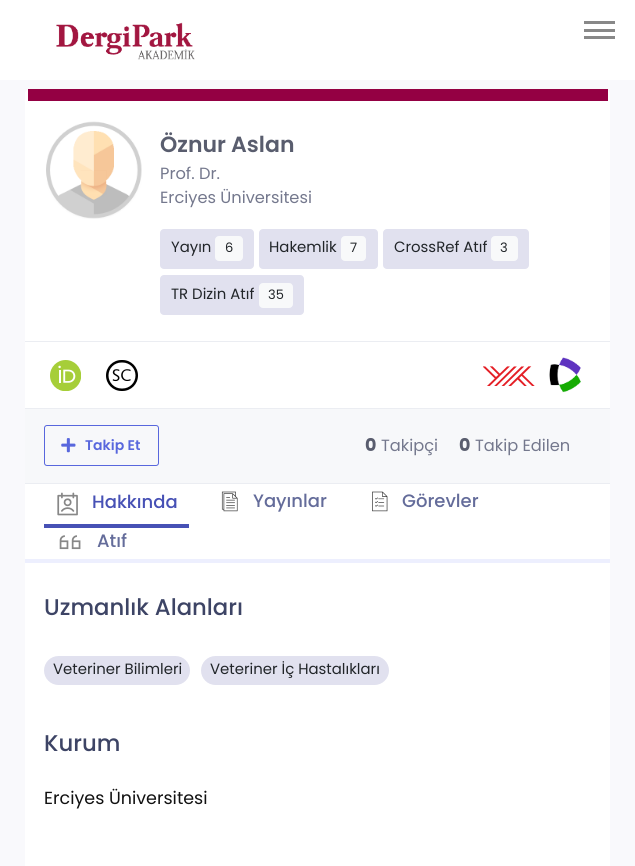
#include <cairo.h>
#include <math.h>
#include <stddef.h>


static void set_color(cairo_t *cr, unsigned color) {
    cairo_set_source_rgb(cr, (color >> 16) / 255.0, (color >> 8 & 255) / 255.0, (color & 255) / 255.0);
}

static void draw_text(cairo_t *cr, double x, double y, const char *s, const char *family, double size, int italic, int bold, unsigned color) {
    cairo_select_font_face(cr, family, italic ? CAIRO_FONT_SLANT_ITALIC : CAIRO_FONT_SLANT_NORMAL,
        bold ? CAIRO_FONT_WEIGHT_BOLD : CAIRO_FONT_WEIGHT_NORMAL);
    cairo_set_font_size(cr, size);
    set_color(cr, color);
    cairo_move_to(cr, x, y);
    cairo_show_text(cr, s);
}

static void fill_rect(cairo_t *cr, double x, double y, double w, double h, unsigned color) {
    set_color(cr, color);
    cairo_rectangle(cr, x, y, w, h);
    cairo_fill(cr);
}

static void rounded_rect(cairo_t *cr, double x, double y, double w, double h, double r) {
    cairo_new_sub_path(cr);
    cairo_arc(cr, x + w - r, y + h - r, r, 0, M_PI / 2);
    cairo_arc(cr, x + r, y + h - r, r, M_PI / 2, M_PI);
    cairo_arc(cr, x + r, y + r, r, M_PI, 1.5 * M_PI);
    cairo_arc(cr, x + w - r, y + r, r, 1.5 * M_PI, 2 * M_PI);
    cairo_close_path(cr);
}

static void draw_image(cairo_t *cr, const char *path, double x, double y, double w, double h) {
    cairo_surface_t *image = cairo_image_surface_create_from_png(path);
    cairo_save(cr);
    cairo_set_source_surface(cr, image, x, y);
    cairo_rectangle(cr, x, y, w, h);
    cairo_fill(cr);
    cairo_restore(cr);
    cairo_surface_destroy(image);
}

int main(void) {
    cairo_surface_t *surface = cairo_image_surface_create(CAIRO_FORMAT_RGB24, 635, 866);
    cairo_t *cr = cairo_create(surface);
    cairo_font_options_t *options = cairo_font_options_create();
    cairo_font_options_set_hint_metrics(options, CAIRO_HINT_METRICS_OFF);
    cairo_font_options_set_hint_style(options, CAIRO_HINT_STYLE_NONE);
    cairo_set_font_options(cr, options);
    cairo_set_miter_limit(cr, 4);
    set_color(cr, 0xF9F9FC);
    cairo_paint(cr);
    fill_rect(cr, 0, 0, 635, 80, 0xFFFFFF);
    draw_image(cr, "assets/img1.png", 56, 22, 139, 38);
    fill_rect(cr, 584, 21, 31, 3, 0x888888);
    fill_rect(cr, 584, 29, 31, 3, 0x888888);
    fill_rect(cr, 584, 36, 31, 3, 0x888888);
    set_color(cr, 0xFFFFFF);
    rounded_rect(cr, 25, 89, 585, 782, 5);
    cairo_fill(cr);
    fill_rect(cr, 28, 89, 580, 12, 0x940043);
    draw_image(cr, "assets/img2.png", 46, 121, 96, 98);
    draw_text(cr, 160, 152, "Öznur Aslan", "Poppins SemiBold", 22, 0, 0, 0x595D6E);
    draw_text(cr, 160, 179, "Prof. Dr.", "Poppins", 16.25, 0, 0, 0x74788D);
    draw_text(cr, 160, 203, "Erciyes Üniversitesi", "Poppins", 16.25, 0, 0, 0x74788D);
    set_color(cr, 0xE1E1EF);
    rounded_rect(cr, 160, 229, 94, 40, 4);
    cairo_fill(cr);
    draw_text(cr, 171, 252, "Yayın", "Poppins", 14.9, 0, 0, 0x212529);
    set_color(cr, 0xF8F9FA);
    rounded_rect(cr, 215, 236, 28, 25, 4);
    cairo_fill(cr);
    draw_text(cr, 225, 252, "6", "Poppins", 13, 0, 0, 0x212529);
    set_color(cr, 0xE1E1EF);
    rounded_rect(cr, 259, 229, 119, 40, 4);
    cairo_fill(cr);
    draw_text(cr, 269, 252, "Hakemlik", "Poppins", 14.9, 0, 0, 0x212529);
    set_color(cr, 0xF8F9FA);
    rounded_rect(cr, 341, 236, 25, 25, 4);
    cairo_fill(cr);
    draw_text(cr, 350, 252, "7", "Poppins", 13, 0, 0, 0x212529);
    set_color(cr, 0xE1E1EF);
    rounded_rect(cr, 383, 229, 146, 40, 4);
    cairo_fill(cr);
    draw_text(cr, 394, 252, "CrossRef Atıf", "Poppins", 14.9, 0, 0, 0x212529);
    set_color(cr, 0xF8F9FA);
    rounded_rect(cr, 491, 236, 27, 25, 4);
    cairo_fill(cr);
    draw_text(cr, 500, 252, "3", "Poppins", 13, 0, 0, 0x212529);
    set_color(cr, 0xE1E1EF);
    rounded_rect(cr, 160, 275, 144, 40, 4);
    cairo_fill(cr);
    draw_text(cr, 171, 299, "TR Dizin Atıf", "Poppins", 14.9, 0, 0, 0x212529);
    set_color(cr, 0xF8F9FA);
    rounded_rect(cr, 259, 283, 34, 25, 4);
    cairo_fill(cr);
    draw_text(cr, 268, 299, "35", "Poppins", 13, 0, 0, 0x212529);
    fill_rect(cr, 25, 341, 585, 1, 0xEBEDF2);
    draw_image(cr, "assets/img3.png", 50, 360, 31, 31);
    draw_image(cr, "assets/img4.png", 106, 360, 32, 31);
    draw_image(cr, "assets/img5.png", 483, 366, 52, 20);
    draw_image(cr, "assets/img6.png", 549, 357, 32, 36);
    fill_rect(cr, 25, 408, 585, 1, 0xEBEDF2);
    fill_rect(cr, 25, 409, 585, 74, 0xF7F8FA);
    rounded_rect(cr, 44.5, 425.5, 114, 40, 2.5);
    set_color(cr, 0x5867DD);
    cairo_set_line_width(cr, 1);
    cairo_stroke(cr);
    draw_image(cr, "assets/img7.png", 61, 438, 15, 15);
    draw_text(cr, 85, 450, "Takip Et", "Poppins SemiBold", 14, 0, 0, 0x5867DD);
    draw_text(cr, 365, 451, "0", "Poppins", 17.5, 0, 1, 0x595D6E);
    draw_text(cr, 381, 451, "Takipçi", "Poppins", 16.25, 0, 0, 0x74788D);
    draw_text(cr, 459, 451, "0", "Poppins", 17.5, 0, 1, 0x595D6E);
    draw_text(cr, 475, 451, "Takip Edilen", "Poppins", 16.25, 0, 0, 0x74788D);
    fill_rect(cr, 25, 483, 585, 1, 0xEBEDF2);
    cairo_set_source_rgba(cr, 0.302, 0.361, 0.949, 0.1);
    cairo_rectangle(cr, 25, 559, 585, 4);
    cairo_fill(cr);
    fill_rect(cr, 44, 524, 145, 4, 0x4751B5);
    draw_image(cr, "assets/img8.png", 57, 492, 21, 24);
    draw_text(cr, 92, 508, "Hakkında", "Poppins Medium", 18, 0, 0, 0x4751B5);
    draw_image(cr, "assets/img9.png", 221, 491, 17, 21);
    draw_text(cr, 253, 507, "Yayınlar", "Poppins Medium", 18, 0, 0, 0x646C9A);
    draw_image(cr, "assets/img10.png", 372, 491, 16, 21);
    draw_text(cr, 402, 507, "Görevler", "Poppins Medium", 18, 0, 0, 0x646C9A);
    draw_image(cr, "assets/img11.png", 59, 535, 22, 15);
    draw_text(cr, 97, 547, "Atıf", "Poppins Medium", 18, 0, 0, 0x646C9A);
    draw_text(cr, 44, 615, "Uzmanlık Alanları", "Poppins Medium", 22.75, 0, 0, 0x3D4465);
    set_color(cr, 0xE1E1EF);
    rounded_rect(cr, 44, 656, 146, 29, 14.5);
    cairo_fill(cr);
    draw_text(cr, 53, 674, "Veteriner Bilimleri", "Poppins", 14.9, 0, 0, 0x212529);
    set_color(cr, 0xE1E1EF);
    rounded_rect(cr, 201, 656, 188, 29, 14.5);
    cairo_fill(cr);
    draw_text(cr, 210, 674, "Veteriner İç Hastalıkları", "Poppins", 14.9, 0, 0, 0x212529);
    draw_text(cr, 44, 751, "Kurum", "Poppins Medium", 22.75, 0, 0, 0x3D4465);
    draw_text(cr, 44, 804, "Erciyes Üniversitesi", "Poppins", 17.5, 0, 0, 0x111111);
    cairo_surface_write_to_png(surface, "output.png");
    cairo_font_options_destroy(options);
    cairo_destroy(cr);
    cairo_surface_destroy(surface);
    return 0;
}
